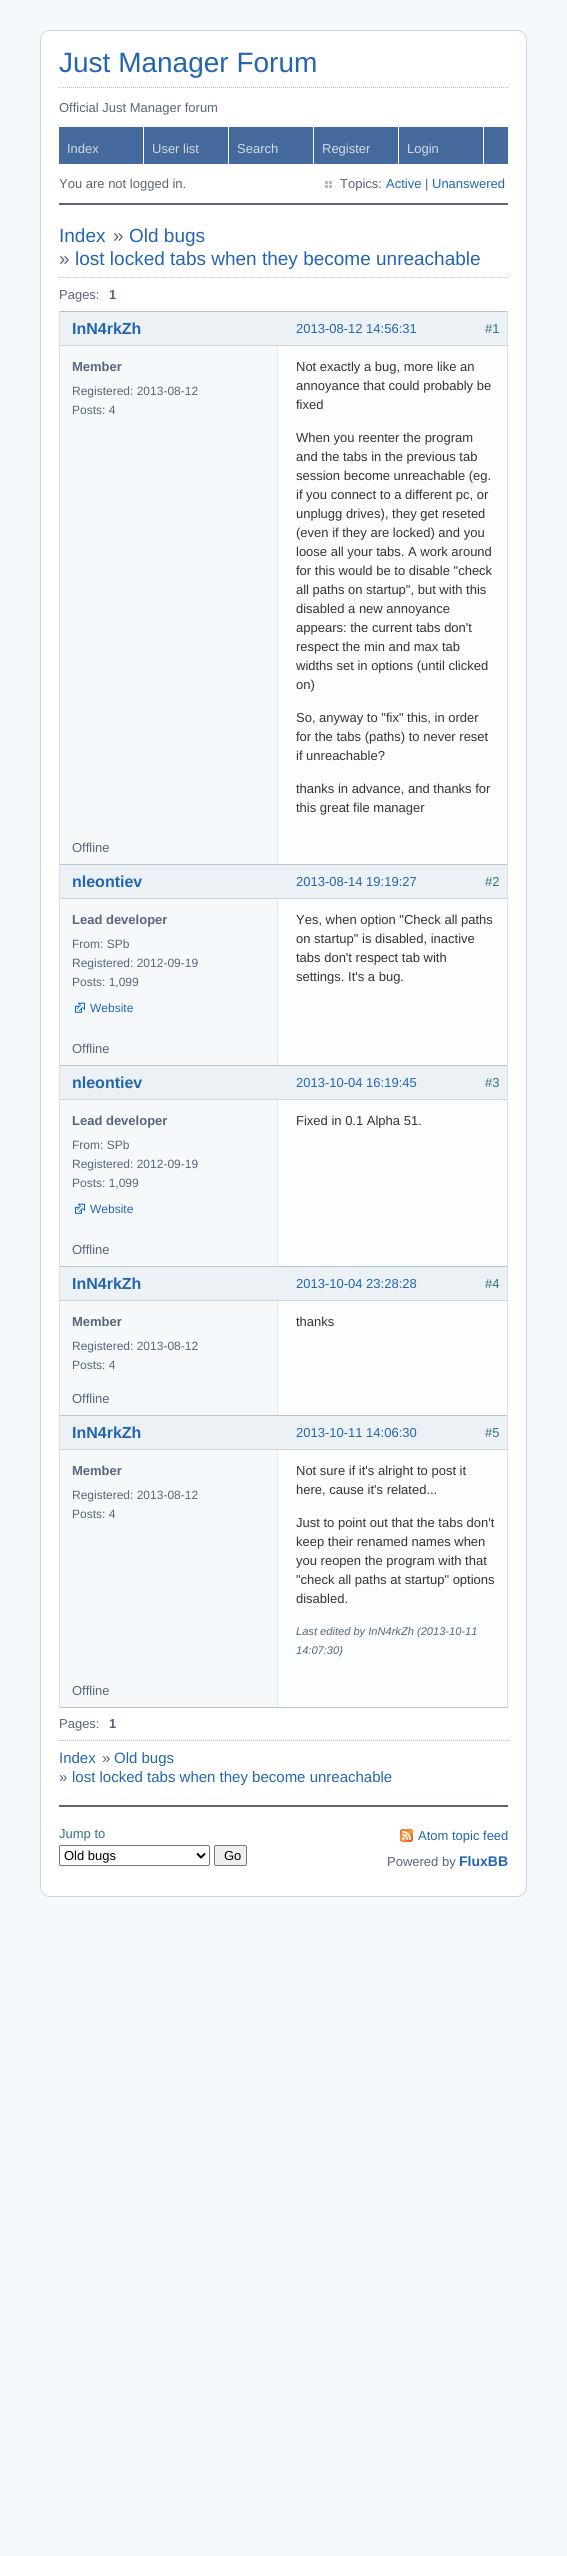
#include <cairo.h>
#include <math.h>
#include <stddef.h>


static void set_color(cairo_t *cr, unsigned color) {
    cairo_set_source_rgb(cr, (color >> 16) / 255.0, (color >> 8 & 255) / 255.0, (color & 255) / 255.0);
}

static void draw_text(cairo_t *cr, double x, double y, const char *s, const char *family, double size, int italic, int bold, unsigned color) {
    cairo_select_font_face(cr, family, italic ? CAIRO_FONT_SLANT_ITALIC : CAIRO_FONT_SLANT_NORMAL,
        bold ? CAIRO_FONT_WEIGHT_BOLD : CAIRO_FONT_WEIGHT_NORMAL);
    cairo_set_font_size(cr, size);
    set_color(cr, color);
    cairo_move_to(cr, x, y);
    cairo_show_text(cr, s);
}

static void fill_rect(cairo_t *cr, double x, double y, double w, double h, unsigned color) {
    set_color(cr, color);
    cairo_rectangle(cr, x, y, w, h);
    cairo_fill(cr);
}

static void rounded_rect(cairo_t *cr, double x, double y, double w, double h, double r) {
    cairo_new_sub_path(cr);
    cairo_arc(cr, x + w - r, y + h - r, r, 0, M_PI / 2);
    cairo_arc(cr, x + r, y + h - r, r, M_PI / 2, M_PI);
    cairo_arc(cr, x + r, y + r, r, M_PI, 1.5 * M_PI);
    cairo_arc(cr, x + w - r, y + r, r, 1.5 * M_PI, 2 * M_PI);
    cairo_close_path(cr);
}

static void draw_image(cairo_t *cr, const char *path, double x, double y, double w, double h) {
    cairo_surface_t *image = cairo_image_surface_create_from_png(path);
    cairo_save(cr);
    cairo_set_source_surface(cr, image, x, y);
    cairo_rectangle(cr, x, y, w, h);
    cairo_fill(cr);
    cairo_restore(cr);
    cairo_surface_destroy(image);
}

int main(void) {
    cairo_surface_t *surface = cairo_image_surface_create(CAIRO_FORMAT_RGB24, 567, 2556);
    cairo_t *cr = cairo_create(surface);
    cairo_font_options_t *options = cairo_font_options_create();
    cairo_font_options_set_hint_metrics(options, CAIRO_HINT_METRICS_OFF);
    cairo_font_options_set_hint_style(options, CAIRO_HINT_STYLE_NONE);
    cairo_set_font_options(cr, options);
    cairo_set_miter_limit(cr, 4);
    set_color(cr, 0xF6F9FC);
    cairo_paint(cr);
    set_color(cr, 0xFFFFFF);
    rounded_rect(cr, 40.5, 30.5, 486, 1866, 9.5);
    cairo_fill_preserve(cr);
    set_color(cr, 0xCAD7E1);
    cairo_set_line_width(cr, 1);
    cairo_stroke(cr);
    draw_text(cr, 59, 72, "Just Manager Forum", "Liberation Sans", 28, 0, 0, 0x2365B0);
    cairo_new_path(cr);
    cairo_move_to(cr, 59, 87.5);
    cairo_line_to(cr, 508, 87.5);
    set_color(cr, 0xB9C5CE);
    cairo_set_dash(cr, (double[]){1, 1}, 2, 0);
    cairo_stroke(cr);
    draw_text(cr, 59, 112, "Official Just Manager forum", "Liberation Sans", 13, 0, 0, 0x566579);
    fill_rect(cr, 59, 127, 449, 37, 0x44699C);
    fill_rect(cr, 143, 127, 1, 37, 0xFFFFFF);
    draw_text(cr, 67, 153, "Index", "Liberation Sans", 13, 0, 0, 0xD4DAE2);
    fill_rect(cr, 228, 127, 1, 37, 0xFFFFFF);
    draw_text(cr, 152, 153, "User list", "Liberation Sans", 13, 0, 0, 0xD4DAE2);
    fill_rect(cr, 313, 127, 1, 37, 0xFFFFFF);
    draw_text(cr, 237, 153, "Search", "Liberation Sans", 13, 0, 0, 0xD4DAE2);
    fill_rect(cr, 398, 127, 1, 37, 0xFFFFFF);
    draw_text(cr, 322, 153, "Register", "Liberation Sans", 13, 0, 0, 0xD4DAE2);
    fill_rect(cr, 483, 127, 1, 37, 0xFFFFFF);
    draw_text(cr, 407, 153, "Login", "Liberation Sans", 13, 0, 0, 0xD4DAE2);
    draw_text(cr, 59, 188, "You are not logged in.", "Liberation Sans", 13, 0, 0, 0x566579);
    draw_image(cr, "assets/img1.png", 325, 181, 7, 7);
    draw_text(cr, 340, 188, "Topics:", "Liberation Sans", 13, 0, 0, 0x566579);
    draw_text(cr, 386, 188, "Active", "Liberation Sans", 13, 0, 0, 0x2365B0);
    draw_text(cr, 425, 188, "|", "Liberation Sans", 13, 0, 0, 0x566579);
    draw_text(cr, 432, 188, "Unanswered", "Liberation Sans", 13, 0, 0, 0x2365B0);
    fill_rect(cr, 59, 203, 449, 2, 0x566579);
    fill_rect(cr, 59, 1805, 449, 2, 0x566579);
    draw_text(cr, 59, 242, "Index", "Liberation Sans", 19, 0, 0, 0x2365B0);
    draw_text(cr, 113, 242, "»", "Liberation Sans", 19, 0, 0, 0x566579);
    draw_text(cr, 129, 242, "Old bugs", "Liberation Sans", 19, 0, 0, 0x2365B0);
    draw_text(cr, 59, 265, "»", "Liberation Sans", 19, 0, 0, 0x566579);
    draw_text(cr, 75, 265, "lost locked tabs when they become unreachable", "Liberation Sans", 19, 0, 0, 0x2365B0);
    cairo_new_path(cr);
    cairo_move_to(cr, 59, 277.5);
    cairo_line_to(cr, 508, 277.5);
    set_color(cr, 0xB9C5CE);
    cairo_stroke(cr);
    draw_text(cr, 59, 299, "Pages:", "Liberation Sans", 13, 0, 0, 0x566579);
    draw_text(cr, 109, 299, "1", "Liberation Sans", 13, 0, 1, 0x566579);
    fill_rect(cr, 60, 346, 217, 518, 0xF6F9FC);
    fill_rect(cr, 59, 311, 449, 1, 0xB9C5CE);
    fill_rect(cr, 507, 311, 1, 554, 0xD9E1E7);
    fill_rect(cr, 59, 311, 1, 554, 0xD9E1E7);
    fill_rect(cr, 278, 346, 229, 518, 0xFCFDFE);
    fill_rect(cr, 277, 346, 1, 518, 0xDFE6EE);
    fill_rect(cr, 60, 312, 447, 33, 0xEBF1F5);
    draw_text(cr, 72, 334, "InN4rkZh", "Liberation Sans", 16, 0, 1, 0x2365B0);
    draw_text(cr, 72, 371, "Member", "Liberation Sans", 13, 0, 1, 0x566579);
    draw_text(cr, 72, 395, "Registered: 2013-08-12", "Liberation Sans", 12, 0, 0, 0x566579);
    draw_text(cr, 72, 414, "Posts: 4", "Liberation Sans", 12, 0, 0, 0x566579);
    draw_text(cr, 296, 371, "Not exactly a bug, more like an", "Liberation Sans", 13, 0, 0, 0x333333);
    draw_text(cr, 296, 390, "annoyance that could probably be", "Liberation Sans", 13, 0, 0, 0x333333);
    draw_text(cr, 296, 409, "fixed", "Liberation Sans", 13, 0, 0, 0x333333);
    draw_text(cr, 296, 442, "When you reenter the program", "Liberation Sans", 13, 0, 0, 0x333333);
    draw_text(cr, 296, 461, "and the tabs in the previous tab", "Liberation Sans", 13, 0, 0, 0x333333);
    draw_text(cr, 296, 480, "session become unreachable (eg.", "Liberation Sans", 13, 0, 0, 0x333333);
    draw_text(cr, 296, 499, "if you connect to a different pc, or", "Liberation Sans", 13, 0, 0, 0x333333);
    draw_text(cr, 296, 518, "unplugg drives), they get reseted", "Liberation Sans", 13, 0, 0, 0x333333);
    draw_text(cr, 296, 537, "(even if they are locked) and you", "Liberation Sans", 13, 0, 0, 0x333333);
    draw_text(cr, 296, 556, "loose all your tabs. A work around", "Liberation Sans", 13, 0, 0, 0x333333);
    draw_text(cr, 296, 575, "for this would be to disable \"check", "Liberation Sans", 13, 0, 0, 0x333333);
    draw_text(cr, 296, 594, "all paths on startup\", but with this", "Liberation Sans", 13, 0, 0, 0x333333);
    draw_text(cr, 296, 613, "disabled a new annoyance", "Liberation Sans", 13, 0, 0, 0x333333);
    draw_text(cr, 296, 632, "appears: the current tabs don't", "Liberation Sans", 13, 0, 0, 0x333333);
    draw_text(cr, 296, 651, "respect the min and max tab", "Liberation Sans", 13, 0, 0, 0x333333);
    draw_text(cr, 296, 670, "widths set in options (until clicked", "Liberation Sans", 13, 0, 0, 0x333333);
    draw_text(cr, 296, 689, "on)", "Liberation Sans", 13, 0, 0, 0x333333);
    draw_text(cr, 296, 722, "So, anyway to \"fix\" this, in order", "Liberation Sans", 13, 0, 0, 0x333333);
    draw_text(cr, 296, 741, "for the tabs (paths) to never reset", "Liberation Sans", 13, 0, 0, 0x333333);
    draw_text(cr, 296, 760, "if unreachable?", "Liberation Sans", 13, 0, 0, 0x333333);
    draw_text(cr, 296, 793, "thanks in advance, and thanks for", "Liberation Sans", 13, 0, 0, 0x333333);
    draw_text(cr, 296, 812, "this great file manager", "Liberation Sans", 13, 0, 0, 0x333333);
    draw_text(cr, 72, 852, "Offline", "Liberation Sans", 13, 0, 0, 0x566579);
    fill_rect(cr, 60, 345, 447, 1, 0xCAD7E1);
    draw_text(cr, 296, 333, "2013-08-12 14:56:31", "Liberation Sans", 13, 0, 0, 0x2365B0);
    draw_text(cr, 485, 333, "#1", "Liberation Sans", 13, 0, 0, 0x357082);
    fill_rect(cr, 60, 899, 217, 166, 0xF6F9FC);
    fill_rect(cr, 59, 864, 449, 1, 0xB9C5CE);
    fill_rect(cr, 507, 864, 1, 202, 0xD9E1E7);
    fill_rect(cr, 59, 864, 1, 202, 0xD9E1E7);
    fill_rect(cr, 278, 899, 229, 166, 0xFCFDFE);
    fill_rect(cr, 277, 899, 1, 166, 0xDFE6EE);
    fill_rect(cr, 60, 865, 447, 33, 0xEBF1F5);
    draw_text(cr, 72, 887, "nleontiev", "Liberation Sans", 16, 0, 1, 0x2365B0);
    draw_text(cr, 72, 924, "Lead developer", "Liberation Sans", 13, 0, 1, 0x566579);
    draw_text(cr, 72, 948, "From: SPb", "Liberation Sans", 12, 0, 0, 0x566579);
    draw_text(cr, 72, 967, "Registered: 2012-09-19", "Liberation Sans", 12, 0, 0, 0x566579);
    draw_text(cr, 72, 986, "Posts: 1,099", "Liberation Sans", 12, 0, 0, 0x566579);
    draw_image(cr, "assets/img2.png", 75, 1002, 10, 11);
    draw_text(cr, 90, 1012, "Website", "Liberation Sans", 12, 0, 0, 0x2365B0);
    draw_text(cr, 296, 924, "Yes, when option \"Check all paths", "Liberation Sans", 13, 0, 0, 0x333333);
    draw_text(cr, 296, 943, "on startup\" is disabled, inactive", "Liberation Sans", 13, 0, 0, 0x333333);
    draw_text(cr, 296, 962, "tabs don't respect tab with", "Liberation Sans", 13, 0, 0, 0x333333);
    draw_text(cr, 296, 981, "settings. It's a bug.", "Liberation Sans", 13, 0, 0, 0x333333);
    draw_text(cr, 72, 1053, "Offline", "Liberation Sans", 13, 0, 0, 0x566579);
    fill_rect(cr, 60, 898, 447, 1, 0xCAD7E1);
    draw_text(cr, 296, 886, "2013-08-14 19:19:27", "Liberation Sans", 13, 0, 0, 0x2365B0);
    draw_text(cr, 485, 886, "#2", "Liberation Sans", 13, 0, 0, 0x357082);
    fill_rect(cr, 60, 1100, 217, 166, 0xF6F9FC);
    fill_rect(cr, 59, 1065, 449, 1, 0xB9C5CE);
    fill_rect(cr, 507, 1065, 1, 202, 0xD9E1E7);
    fill_rect(cr, 59, 1065, 1, 202, 0xD9E1E7);
    fill_rect(cr, 278, 1100, 229, 166, 0xFCFDFE);
    fill_rect(cr, 277, 1100, 1, 166, 0xDFE6EE);
    fill_rect(cr, 60, 1066, 447, 33, 0xEBF1F5);
    draw_text(cr, 72, 1088, "nleontiev", "Liberation Sans", 16, 0, 1, 0x2365B0);
    draw_text(cr, 72, 1125, "Lead developer", "Liberation Sans", 13, 0, 1, 0x566579);
    draw_text(cr, 72, 1149, "From: SPb", "Liberation Sans", 12, 0, 0, 0x566579);
    draw_text(cr, 72, 1168, "Registered: 2012-09-19", "Liberation Sans", 12, 0, 0, 0x566579);
    draw_text(cr, 72, 1187, "Posts: 1,099", "Liberation Sans", 12, 0, 0, 0x566579);
    draw_image(cr, "assets/img2.png", 75, 1203, 10, 11);
    draw_text(cr, 90, 1213, "Website", "Liberation Sans", 12, 0, 0, 0x2365B0);
    draw_text(cr, 296, 1125, "Fixed in 0.1 Alpha 51.", "Liberation Sans", 13, 0, 0, 0x333333);
    draw_text(cr, 72, 1254, "Offline", "Liberation Sans", 13, 0, 0, 0x566579);
    fill_rect(cr, 60, 1099, 447, 1, 0xCAD7E1);
    draw_text(cr, 296, 1087, "2013-10-04 16:19:45", "Liberation Sans", 13, 0, 0, 0x2365B0);
    draw_text(cr, 485, 1087, "#3", "Liberation Sans", 13, 0, 0, 0x357082);
    fill_rect(cr, 60, 1301, 217, 114, 0xF6F9FC);
    fill_rect(cr, 59, 1266, 449, 1, 0xB9C5CE);
    fill_rect(cr, 507, 1266, 1, 150, 0xD9E1E7);
    fill_rect(cr, 59, 1266, 1, 150, 0xD9E1E7);
    fill_rect(cr, 278, 1301, 229, 114, 0xFCFDFE);
    fill_rect(cr, 277, 1301, 1, 114, 0xDFE6EE);
    fill_rect(cr, 60, 1267, 447, 33, 0xEBF1F5);
    draw_text(cr, 72, 1289, "InN4rkZh", "Liberation Sans", 16, 0, 1, 0x2365B0);
    draw_text(cr, 72, 1326, "Member", "Liberation Sans", 13, 0, 1, 0x566579);
    draw_text(cr, 72, 1350, "Registered: 2013-08-12", "Liberation Sans", 12, 0, 0, 0x566579);
    draw_text(cr, 72, 1369, "Posts: 4", "Liberation Sans", 12, 0, 0, 0x566579);
    draw_text(cr, 296, 1326, "thanks", "Liberation Sans", 13, 0, 0, 0x333333);
    draw_text(cr, 72, 1403, "Offline", "Liberation Sans", 13, 0, 0, 0x566579);
    fill_rect(cr, 60, 1300, 447, 1, 0xCAD7E1);
    draw_text(cr, 296, 1288, "2013-10-04 23:28:28", "Liberation Sans", 13, 0, 0, 0x2365B0);
    draw_text(cr, 485, 1288, "#4", "Liberation Sans", 13, 0, 0, 0x357082);
    fill_rect(cr, 60, 1450, 217, 257, 0xF6F9FC);
    fill_rect(cr, 59, 1415, 449, 1, 0xB9C5CE);
    fill_rect(cr, 507, 1415, 1, 293, 0xD9E1E7);
    fill_rect(cr, 59, 1707, 449, 1, 0xB9C5CE);
    fill_rect(cr, 59, 1415, 1, 293, 0xD9E1E7);
    fill_rect(cr, 278, 1450, 229, 257, 0xFCFDFE);
    fill_rect(cr, 277, 1450, 1, 257, 0xDFE6EE);
    fill_rect(cr, 60, 1416, 447, 33, 0xEBF1F5);
    draw_text(cr, 72, 1438, "InN4rkZh", "Liberation Sans", 16, 0, 1, 0x2365B0);
    draw_text(cr, 72, 1475, "Member", "Liberation Sans", 13, 0, 1, 0x566579);
    draw_text(cr, 72, 1499, "Registered: 2013-08-12", "Liberation Sans", 12, 0, 0, 0x566579);
    draw_text(cr, 72, 1518, "Posts: 4", "Liberation Sans", 12, 0, 0, 0x566579);
    draw_text(cr, 296, 1475, "Not sure if it's alright to post it", "Liberation Sans", 13, 0, 0, 0x333333);
    draw_text(cr, 296, 1494, "here, cause it's related...", "Liberation Sans", 13, 0, 0, 0x333333);
    draw_text(cr, 296, 1527, "Just to point out that the tabs don't", "Liberation Sans", 13, 0, 0, 0x333333);
    draw_text(cr, 296, 1546, "keep their renamed names when", "Liberation Sans", 13, 0, 0, 0x333333);
    draw_text(cr, 296, 1565, "you reopen the program with that", "Liberation Sans", 13, 0, 0, 0x333333);
    draw_text(cr, 296, 1584, "\"check all paths at startup\" options", "Liberation Sans", 13, 0, 0, 0x333333);
    draw_text(cr, 296, 1603, "disabled.", "Liberation Sans", 13, 0, 0, 0x333333);
    draw_text(cr, 296, 1635, "Last edited by InN4rkZh (2013-10-11", "Liberation Sans", 11.1, 1, 0, 0x566579);
    draw_text(cr, 296, 1654, "14:07:30)", "Liberation Sans", 11.1, 1, 0, 0x566579);
    draw_text(cr, 72, 1695, "Offline", "Liberation Sans", 13, 0, 0, 0x566579);
    fill_rect(cr, 60, 1449, 447, 1, 0xCAD7E1);
    draw_text(cr, 296, 1437, "2013-10-11 14:06:30", "Liberation Sans", 13, 0, 0, 0x2365B0);
    draw_text(cr, 485, 1437, "#5", "Liberation Sans", 13, 0, 0, 0x357082);
    cairo_new_path(cr);
    cairo_move_to(cr, 59, 1740.5);
    cairo_line_to(cr, 508, 1740.5);
    set_color(cr, 0xB9C5CE);
    cairo_stroke(cr);
    draw_text(cr, 59, 1728, "Pages:", "Liberation Sans", 13, 0, 0, 0x566579);
    draw_text(cr, 109, 1728, "1", "Liberation Sans", 13, 0, 1, 0x566579);
    draw_text(cr, 59, 1763, "Index", "Liberation Sans", 15, 0, 0, 0x2365B0);
    draw_text(cr, 102, 1763, "»", "Liberation Sans", 15, 0, 0, 0x566579);
    draw_text(cr, 114, 1763, "Old bugs", "Liberation Sans", 15, 0, 0, 0x2365B0);
    draw_text(cr, 59, 1782, "»", "Liberation Sans", 15, 0, 0, 0x566579);
    draw_text(cr, 72, 1782, "lost locked tabs when they become unreachable", "Liberation Sans", 15, 0, 0, 0x2365B0);
    draw_text(cr, 59, 1838, "Jump to", "Liberation Sans", 13, 0, 0, 0x357082);
    rounded_rect(cr, 59.5, 1845.5, 150, 20, 1.5);
    set_color(cr, 0x767676);
    cairo_set_dash(cr, NULL, 0, 0);
    cairo_stroke(cr);
    cairo_new_path(cr);
    cairo_move_to(cr, 197, 1853.5);
    cairo_line_to(cr, 201, 1857.5);
    cairo_line_to(cr, 205, 1853.5);
    set_color(cr, 0x000000);
    cairo_set_line_width(cr, 2);
    cairo_stroke(cr);
    draw_text(cr, 64, 1860, "Old bugs", "Liberation Sans", 13, 0, 0, 0x000000);
    set_color(cr, 0xEFEFEF);
    rounded_rect(cr, 214.5, 1845.5, 32, 20, 1.5);
    cairo_fill_preserve(cr);
    set_color(cr, 0x767676);
    cairo_set_line_width(cr, 1);
    cairo_stroke(cr);
    draw_text(cr, 224, 1860, "Go", "Liberation Sans", 13, 0, 0, 0x000000);
    draw_image(cr, "assets/img3.png", 400, 1829, 13, 13);
    draw_text(cr, 418, 1840, "Atom topic feed", "Liberation Sans", 13, 0, 0, 0x2365B0);
    draw_text(cr, 387, 1866, "Powered by", "Liberation Sans", 13, 0, 0, 0x566579);
    draw_text(cr, 459, 1866, "FluxBB", "Liberation Sans", 14, 0, 1, 0x2365B0);
    cairo_surface_write_to_png(surface, "output.png");
    cairo_font_options_destroy(options);
    cairo_destroy(cr);
    cairo_surface_destroy(surface);
    return 0;
}
